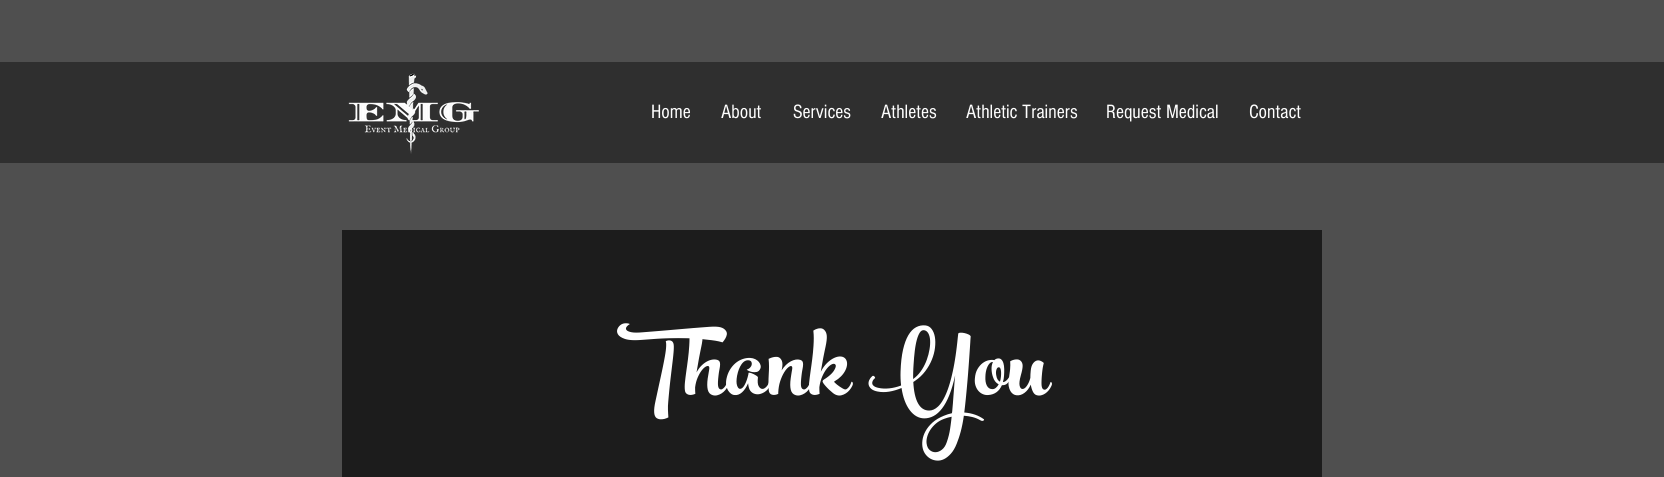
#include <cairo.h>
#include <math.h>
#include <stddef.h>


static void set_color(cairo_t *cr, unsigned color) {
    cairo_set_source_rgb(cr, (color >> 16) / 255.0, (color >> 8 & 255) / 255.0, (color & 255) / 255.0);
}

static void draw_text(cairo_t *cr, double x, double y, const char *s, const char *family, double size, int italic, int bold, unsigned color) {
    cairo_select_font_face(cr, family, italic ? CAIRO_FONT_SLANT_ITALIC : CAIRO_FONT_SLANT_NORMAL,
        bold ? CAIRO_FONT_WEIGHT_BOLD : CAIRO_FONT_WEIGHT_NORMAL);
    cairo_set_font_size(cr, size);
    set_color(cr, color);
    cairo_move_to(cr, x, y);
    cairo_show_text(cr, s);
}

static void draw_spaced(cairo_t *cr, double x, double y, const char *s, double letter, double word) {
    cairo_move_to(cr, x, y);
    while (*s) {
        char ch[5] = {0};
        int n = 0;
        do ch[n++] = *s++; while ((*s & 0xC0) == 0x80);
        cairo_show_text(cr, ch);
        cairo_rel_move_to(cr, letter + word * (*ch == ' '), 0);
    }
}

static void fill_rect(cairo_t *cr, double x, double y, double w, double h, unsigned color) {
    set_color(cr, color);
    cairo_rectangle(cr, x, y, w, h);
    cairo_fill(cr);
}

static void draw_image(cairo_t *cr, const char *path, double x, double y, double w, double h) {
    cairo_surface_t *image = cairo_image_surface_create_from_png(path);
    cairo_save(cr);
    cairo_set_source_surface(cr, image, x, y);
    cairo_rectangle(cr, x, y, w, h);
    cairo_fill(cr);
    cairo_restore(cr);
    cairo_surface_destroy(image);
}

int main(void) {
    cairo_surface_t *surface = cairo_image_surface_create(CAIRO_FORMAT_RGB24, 1664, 477);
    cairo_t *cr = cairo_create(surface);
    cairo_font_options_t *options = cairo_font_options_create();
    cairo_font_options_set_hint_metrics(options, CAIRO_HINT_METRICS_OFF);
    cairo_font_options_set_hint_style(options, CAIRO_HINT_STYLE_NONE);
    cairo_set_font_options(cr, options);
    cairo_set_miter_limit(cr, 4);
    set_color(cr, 0x4F4F4F);
    cairo_paint(cr);
    fill_rect(cr, 0, 62, 1664, 101, 0x2F2F2F);
    draw_image(cr, "assets/img1.png", 348, 73, 131, 81);
    draw_text(cr, 651, 118, "Home", "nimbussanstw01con", 20, 0, 0, 0xFFFFFF);
    draw_text(cr, 721, 118, "About", "nimbussanstw01con", 20, 0, 0, 0xFFFFFF);
    draw_text(cr, 793, 118, "Services", "nimbussanstw01con", 20, 0, 0, 0xFFFFFF);
    draw_text(cr, 881, 118, "Athletes", "nimbussanstw01con", 20, 0, 0, 0xFFFFFF);
    draw_text(cr, 966, 118, "Athletic Trainers", "nimbussanstw01con", 20, 0, 0, 0xFFFFFF);
    draw_text(cr, 1106, 118, "Request Medical", "nimbussanstw01con", 20, 0, 0, 0xFFFFFF);
    draw_text(cr, 1249, 118, "Contact", "nimbussanstw01con", 20, 0, 0, 0xFFFFFF);
    fill_rect(cr, 342, 230, 980, 247, 0x1C1C1C);
    cairo_select_font_face(cr, "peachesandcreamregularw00", CAIRO_FONT_SLANT_NORMAL, CAIRO_FONT_WEIGHT_NORMAL);
    cairo_set_font_size(cr, 140);
    set_color(cr, 0xFFFFFF);
    draw_spaced(cr, 617, 395, "Thank You", 1.5, 0);
    cairo_surface_write_to_png(surface, "output.png");
    cairo_font_options_destroy(options);
    cairo_destroy(cr);
    cairo_surface_destroy(surface);
    return 0;
}
